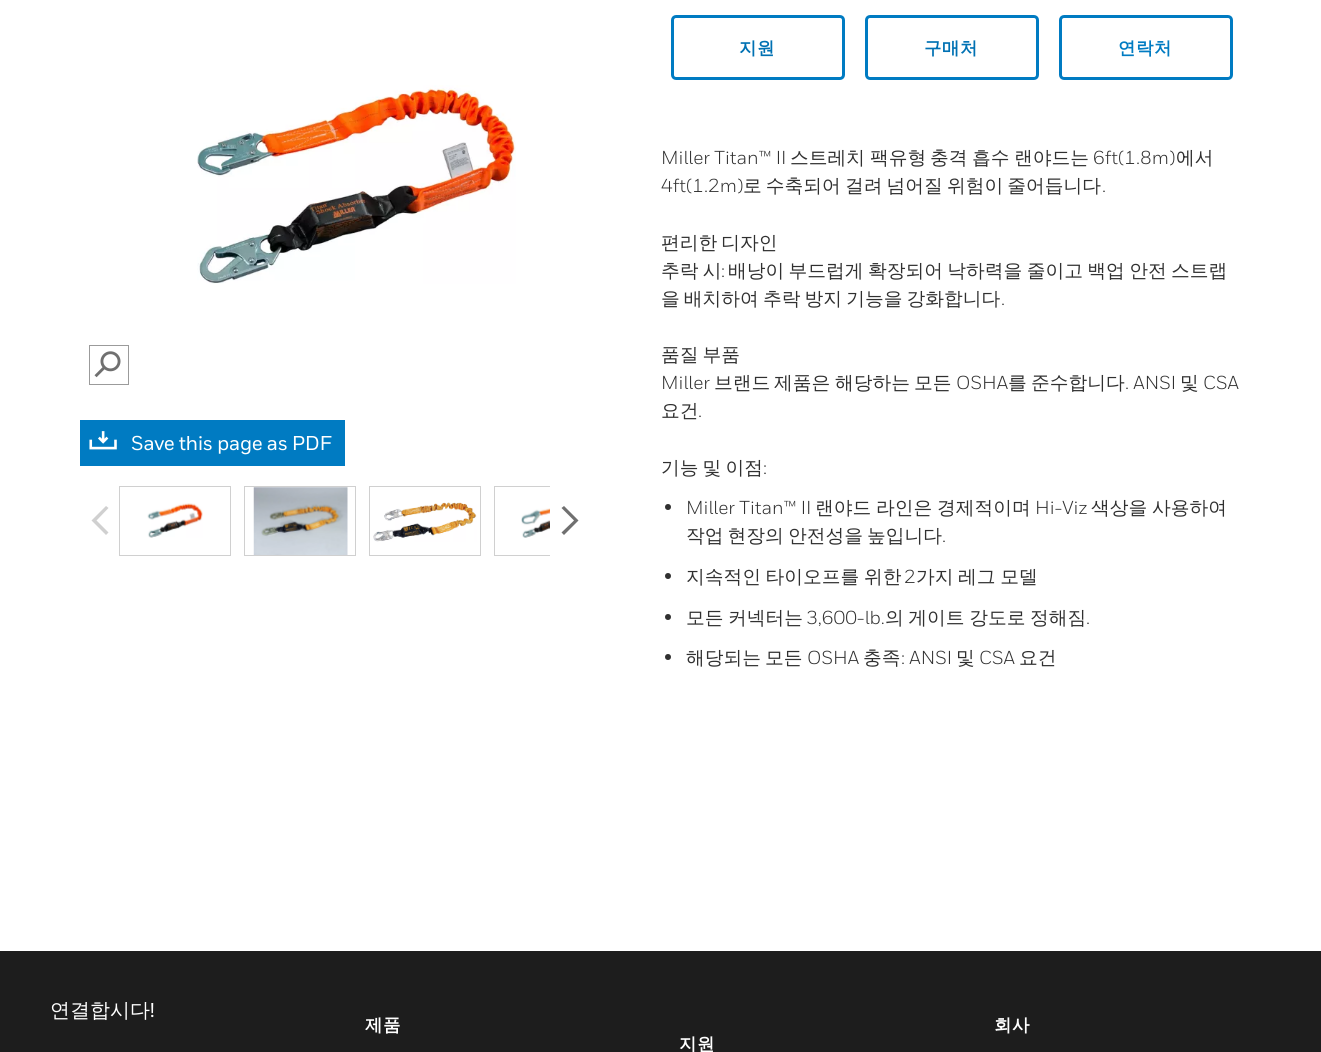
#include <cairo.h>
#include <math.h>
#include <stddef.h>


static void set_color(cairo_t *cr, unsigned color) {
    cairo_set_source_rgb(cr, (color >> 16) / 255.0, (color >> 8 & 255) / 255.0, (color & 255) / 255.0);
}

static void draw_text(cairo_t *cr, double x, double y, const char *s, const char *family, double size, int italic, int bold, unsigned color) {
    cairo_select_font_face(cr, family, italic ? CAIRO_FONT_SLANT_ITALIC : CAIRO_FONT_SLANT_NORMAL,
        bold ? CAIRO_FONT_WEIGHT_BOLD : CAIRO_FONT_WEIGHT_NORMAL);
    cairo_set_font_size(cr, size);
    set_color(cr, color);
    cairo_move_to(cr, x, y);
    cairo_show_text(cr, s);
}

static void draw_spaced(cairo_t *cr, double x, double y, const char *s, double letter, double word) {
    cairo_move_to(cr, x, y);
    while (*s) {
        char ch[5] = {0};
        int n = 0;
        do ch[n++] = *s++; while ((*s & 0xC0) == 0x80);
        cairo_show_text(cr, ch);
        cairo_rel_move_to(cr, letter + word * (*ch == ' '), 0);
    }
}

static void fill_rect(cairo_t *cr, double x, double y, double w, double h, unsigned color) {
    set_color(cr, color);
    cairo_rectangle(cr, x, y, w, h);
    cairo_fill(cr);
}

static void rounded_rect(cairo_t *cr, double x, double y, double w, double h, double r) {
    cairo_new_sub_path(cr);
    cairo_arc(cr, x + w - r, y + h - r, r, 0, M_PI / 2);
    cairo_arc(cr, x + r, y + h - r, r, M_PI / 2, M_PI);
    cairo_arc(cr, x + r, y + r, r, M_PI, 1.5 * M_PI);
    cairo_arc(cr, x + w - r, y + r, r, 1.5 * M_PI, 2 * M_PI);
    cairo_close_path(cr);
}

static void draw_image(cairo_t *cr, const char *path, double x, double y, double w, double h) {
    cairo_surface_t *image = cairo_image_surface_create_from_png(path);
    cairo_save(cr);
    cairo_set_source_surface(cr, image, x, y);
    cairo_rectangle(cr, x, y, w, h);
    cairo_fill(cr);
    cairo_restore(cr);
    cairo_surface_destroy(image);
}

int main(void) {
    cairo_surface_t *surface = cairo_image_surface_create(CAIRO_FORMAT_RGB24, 1321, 1052);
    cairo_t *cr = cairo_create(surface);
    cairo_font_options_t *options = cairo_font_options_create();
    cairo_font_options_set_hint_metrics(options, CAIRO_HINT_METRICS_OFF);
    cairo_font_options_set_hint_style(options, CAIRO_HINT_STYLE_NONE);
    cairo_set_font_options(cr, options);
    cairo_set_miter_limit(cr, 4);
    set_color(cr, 0xFFFFFF);
    cairo_paint(cr);
    draw_image(cr, "assets/img1.png", 197, 85, 319, 199);
    cairo_rectangle(cr, 89.5, 345.5, 39, 39);
    set_color(cr, 0x9B9B9B);
    cairo_set_line_width(cr, 1);
    cairo_stroke(cr);
    draw_image(cr, "assets/img2.png", 94, 351, 27, 27);
    fill_rect(cr, 80, 420, 265, 46, 0x007BC2);
    draw_image(cr, "assets/img3.png", 89, 431, 28, 19);
    cairo_select_font_face(cr, "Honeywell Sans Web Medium", CAIRO_FONT_SLANT_NORMAL, CAIRO_FONT_WEIGHT_NORMAL);
    cairo_set_font_size(cr, 20);
    set_color(cr, 0xFFFFFF);
    draw_spaced(cr, 131, 450, "Save this page as PDF", -0.4, 0);
    set_color(cr, 0xD0D0D0);
    cairo_new_path(cr);
    cairo_move_to(cr, 106, 506);
    cairo_line_to(cr, 108.5, 508);
    cairo_line_to(cr, 96.5, 520.5);
    cairo_line_to(cr, 108.5, 532.5);
    cairo_line_to(cr, 106, 535);
    cairo_line_to(cr, 91.5, 520.5);
    cairo_close_path(cr);
    cairo_fill(cr);
    cairo_rectangle(cr, 119.5, 486.5, 111, 69);
    cairo_stroke(cr);
    draw_image(cr, "assets/img4.png", 147, 503, 56, 35);
    cairo_rectangle(cr, 244.5, 486.5, 111, 69);
    cairo_stroke(cr);
    draw_image(cr, "assets/img5.png", 253, 487, 95, 68);
    cairo_rectangle(cr, 369.5, 486.5, 111, 69);
    cairo_stroke(cr);
    draw_image(cr, "assets/img6.png", 373, 502, 104, 40);
    set_color(cr, 0x707070);
    cairo_new_path(cr);
    cairo_move_to(cr, 564, 506);
    cairo_line_to(cr, 578.5, 520.5);
    cairo_line_to(cr, 564, 535);
    cairo_line_to(cr, 561.5, 532.5);
    cairo_line_to(cr, 574, 520.5);
    cairo_line_to(cr, 561.5, 508);
    cairo_close_path(cr);
    cairo_fill(cr);
    cairo_save(cr);
    cairo_rectangle(cr, 119, 486, 431, 70);
    cairo_clip(cr);
    cairo_rectangle(cr, 494.5, 486.5, 111, 69);
    set_color(cr, 0xD0D0D0);
    cairo_stroke(cr);
    cairo_restore(cr);
    draw_image(cr, "assets/img7.png", 521, 508, 29, 30);
    rounded_rect(cr, 672.5, 16.5, 171, 62, 3.5);
    set_color(cr, 0x007BC2);
    cairo_set_line_width(cr, 3);
    cairo_stroke(cr);
    cairo_select_font_face(cr, "WenQuanYi Zen Hei", CAIRO_FONT_SLANT_NORMAL, CAIRO_FONT_WEIGHT_BOLD);
    cairo_set_font_size(cr, 17.5);
    set_color(cr, 0x0071B3);
    draw_spaced(cr, 739, 54, "지원", 0.5, 0);
    rounded_rect(cr, 866.5, 16.5, 171, 62, 3.5);
    set_color(cr, 0x007BC2);
    cairo_stroke(cr);
    set_color(cr, 0x0071B3);
    draw_spaced(cr, 924, 54, "구매처", 0.5, 0);
    rounded_rect(cr, 1060.5, 16.5, 171, 62, 3.5);
    set_color(cr, 0x007BC2);
    cairo_stroke(cr);
    draw_spaced(cr, 1118, 54, "연락처", 0.5, 0);
    draw_text(cr, 661, 164, "Miller Titan™ II", "Honeywell Sans Web", 18.75, 0, 0, 0x303030);
    draw_text(cr, 790, 164, "스트레치", "WenQuanYi Zen Hei Medium", 18.75, 0, 0, 0x303030);
    draw_text(cr, 870, 164, "팩유형", "WenQuanYi Zen Hei Medium", 18.75, 0, 0, 0x303030);
    draw_text(cr, 930, 164, "충격", "WenQuanYi Zen Hei Medium", 18.75, 0, 0, 0x303030);
    draw_text(cr, 972, 164, "흡수", "WenQuanYi Zen Hei Medium", 18.75, 0, 0, 0x303030);
    draw_text(cr, 1014, 164, "랜야드는", "WenQuanYi Zen Hei Medium", 18.75, 0, 0, 0x303030);
    draw_text(cr, 1093, 164, "6ft(1.8m)", "Honeywell Sans Web", 18.75, 0, 0, 0x303030);
    draw_text(cr, 1176, 164, "에서", "WenQuanYi Zen Hei Medium", 18.75, 0, 0, 0x303030);
    draw_text(cr, 661, 192, "4ft(1.2m)", "Honeywell Sans Web", 18.75, 0, 0, 0x303030);
    cairo_select_font_face(cr, "WenQuanYi Zen Hei Medium", CAIRO_FONT_SLANT_NORMAL, CAIRO_FONT_WEIGHT_NORMAL);
    draw_spaced(cr, 743, 192, "로 수축되어 걸려 넘어질 위험이 줄어듭니다", 0, -1.5);
    draw_text(cr, 1102, 192, ".", "Honeywell Sans Web", 18.75, 0, 0, 0x303030);
    cairo_select_font_face(cr, "WenQuanYi Zen Hei Medium", CAIRO_FONT_SLANT_NORMAL, CAIRO_FONT_WEIGHT_NORMAL);
    draw_spaced(cr, 661, 249, "편리한 디자인", 0, -1.5);
    draw_spaced(cr, 661, 277, "추락 시", 0, -1.25);
    draw_text(cr, 721, 277, ":", "Honeywell Sans Web", 18.75, 0, 0, 0x303030);
    cairo_select_font_face(cr, "WenQuanYi Zen Hei Medium", CAIRO_FONT_SLANT_NORMAL, CAIRO_FONT_WEIGHT_NORMAL);
    draw_spaced(cr, 728, 277, "배낭이 부드럽게 확장되어 낙하력을 줄이고 백업 안전 스트랩", 0, -1.25);
    draw_spaced(cr, 661, 305, "을 배치하여 추락 방지 기능을 강화합니다", 0, -1.5);
    draw_text(cr, 1001, 305, ".", "Honeywell Sans Web", 18.75, 0, 0, 0x303030);
    cairo_select_font_face(cr, "WenQuanYi Zen Hei Medium", CAIRO_FONT_SLANT_NORMAL, CAIRO_FONT_WEIGHT_NORMAL);
    draw_spaced(cr, 661, 361, "품질 부품", 0, -1.5);
    draw_text(cr, 661, 389, "Miller", "Honeywell Sans Web", 18.75, 0, 0, 0x303030);
    draw_text(cr, 714, 389, "브랜드", "WenQuanYi Zen Hei Medium", 18.75, 0, 0, 0x303030);
    draw_text(cr, 774, 389, "제품은", "WenQuanYi Zen Hei Medium", 18.75, 0, 0, 0x303030);
    draw_text(cr, 835, 389, "해당하는", "WenQuanYi Zen Hei Medium", 18.75, 0, 0, 0x303030);
    draw_text(cr, 914, 389, "모든", "WenQuanYi Zen Hei Medium", 18.75, 0, 0, 0x303030);
    draw_text(cr, 956, 389, "OSHA", "Honeywell Sans Web", 18.75, 0, 0, 0x303030);
    draw_text(cr, 1008, 389, "를", "WenQuanYi Zen Hei Medium", 18.75, 0, 0, 0x303030);
    draw_text(cr, 1031, 389, "준수합니다", "WenQuanYi Zen Hei Medium", 18.75, 0, 0, 0x303030);
    draw_text(cr, 1125, 389, ". ANSI", "Honeywell Sans Web", 18.75, 0, 0, 0x303030);
    draw_text(cr, 1180, 389, "및", "WenQuanYi Zen Hei Medium", 18.75, 0, 0, 0x303030);
    draw_text(cr, 1203, 389, "CSA", "Honeywell Sans Web", 18.75, 0, 0, 0x303030);
    draw_text(cr, 661, 417, "요건", "WenQuanYi Zen Hei Medium", 18.75, 0, 0, 0x303030);
    draw_text(cr, 698, 417, ".", "Honeywell Sans Web", 18.75, 0, 0, 0x303030);
    cairo_select_font_face(cr, "WenQuanYi Zen Hei Medium", CAIRO_FONT_SLANT_NORMAL, CAIRO_FONT_WEIGHT_NORMAL);
    draw_spaced(cr, 661, 474, "기능 및 이점", 0, -1.5);
    draw_text(cr, 763, 474, ":", "Honeywell Sans Web", 18.75, 0, 0, 0x303030);
    cairo_new_path(cr);
    cairo_arc(cr, 668, 507, 3, 0, 2 * M_PI);
    cairo_fill(cr);
    draw_text(cr, 686, 514, "Miller Titan™ II", "Honeywell Sans Web", 18.75, 0, 0, 0x303030);
    draw_text(cr, 815, 514, "랜야드", "WenQuanYi Zen Hei Medium", 18.75, 0, 0, 0x303030);
    draw_text(cr, 876, 514, "라인은", "WenQuanYi Zen Hei Medium", 18.75, 0, 0, 0x303030);
    draw_text(cr, 937, 514, "경제적이며", "WenQuanYi Zen Hei Medium", 18.75, 0, 0, 0x303030);
    draw_text(cr, 1035, 514, "Hi-Viz", "Honeywell Sans Web", 18.75, 0, 0, 0x303030);
    draw_text(cr, 1091, 514, "색상을", "WenQuanYi Zen Hei Medium", 18.75, 0, 0, 0x303030);
    draw_text(cr, 1152, 514, "사용하여", "WenQuanYi Zen Hei Medium", 18.75, 0, 0, 0x303030);
    draw_spaced(cr, 686, 542, "작업 현장의 안전성을 높입니다", 0, -1.5);
    draw_text(cr, 942, 542, ".", "Honeywell Sans Web", 18.75, 0, 0, 0x303030);
    cairo_new_path(cr);
    cairo_arc(cr, 668, 576, 3, 0, 2 * M_PI);
    cairo_fill(cr);
    cairo_select_font_face(cr, "WenQuanYi Zen Hei Medium", CAIRO_FONT_SLANT_NORMAL, CAIRO_FONT_WEIGHT_NORMAL);
    draw_spaced(cr, 686, 583, "지속적인 타이오프를 위한", 0, -1);
    draw_text(cr, 904, 583, "2", "Honeywell Sans Web", 18.75, 0, 0, 0x303030);
    cairo_select_font_face(cr, "WenQuanYi Zen Hei Medium", CAIRO_FONT_SLANT_NORMAL, CAIRO_FONT_WEIGHT_NORMAL);
    draw_spaced(cr, 916, 583, "가지 레그 모델", 0, -1);
    cairo_new_path(cr);
    cairo_arc(cr, 668, 617, 3, 0, 2 * M_PI);
    cairo_fill(cr);
    draw_spaced(cr, 686, 624, "모든 커넥터는", 0, -1);
    draw_text(cr, 806, 624, "3,600-lb.", "Honeywell Sans Web", 18.75, 0, 0, 0x303030);
    cairo_select_font_face(cr, "WenQuanYi Zen Hei Medium", CAIRO_FONT_SLANT_NORMAL, CAIRO_FONT_WEIGHT_NORMAL);
    draw_spaced(cr, 885, 624, "의 게이트 강도로 정해짐", 0, -1);
    draw_text(cr, 1086, 624, ".", "Honeywell Sans Web", 18.75, 0, 0, 0x303030);
    cairo_new_path(cr);
    cairo_arc(cr, 668, 657, 3, 0, 2 * M_PI);
    cairo_fill(cr);
    draw_text(cr, 686, 664, "해당되는", "WenQuanYi Zen Hei Medium", 18.75, 0, 0, 0x303030);
    draw_text(cr, 765, 664, "모든", "WenQuanYi Zen Hei Medium", 18.75, 0, 0, 0x303030);
    draw_text(cr, 807, 664, "OSHA", "Honeywell Sans Web", 18.75, 0, 0, 0x303030);
    draw_text(cr, 863, 664, "충족", "WenQuanYi Zen Hei Medium", 18.75, 0, 0, 0x303030);
    draw_text(cr, 901, 664, ": ANSI", "Honeywell Sans Web", 18.75, 0, 0, 0x303030);
    draw_text(cr, 956, 664, "및", "WenQuanYi Zen Hei Medium", 18.75, 0, 0, 0x303030);
    draw_text(cr, 979, 664, "CSA", "Honeywell Sans Web", 18.75, 0, 0, 0x303030);
    draw_text(cr, 1019, 664, "요건", "WenQuanYi Zen Hei Medium", 18.75, 0, 0, 0x303030);
    fill_rect(cr, 0, 951, 1321, 101, 0x1D1D1D);
    draw_text(cr, 50, 1017, "연결합시다", "WenQuanYi Zen Hei Medium", 20, 0, 0, 0xFFFFFF);
    draw_text(cr, 150, 1017, "!", "Honeywell Sans Web Medium", 20, 0, 0, 0xFFFFFF);
    cairo_select_font_face(cr, "WenQuanYi Zen Hei", CAIRO_FONT_SLANT_NORMAL, CAIRO_FONT_WEIGHT_BOLD);
    cairo_set_font_size(cr, 17.5);
    draw_spaced(cr, 365, 1031, "제품", 0.5, 0);
    draw_spaced(cr, 994, 1031, "회사", 0.5, 0);
    draw_spaced(cr, 679, 1050, "지원", 0.5, 0);
    cairo_surface_write_to_png(surface, "output.png");
    cairo_font_options_destroy(options);
    cairo_destroy(cr);
    cairo_surface_destroy(surface);
    return 0;
}
